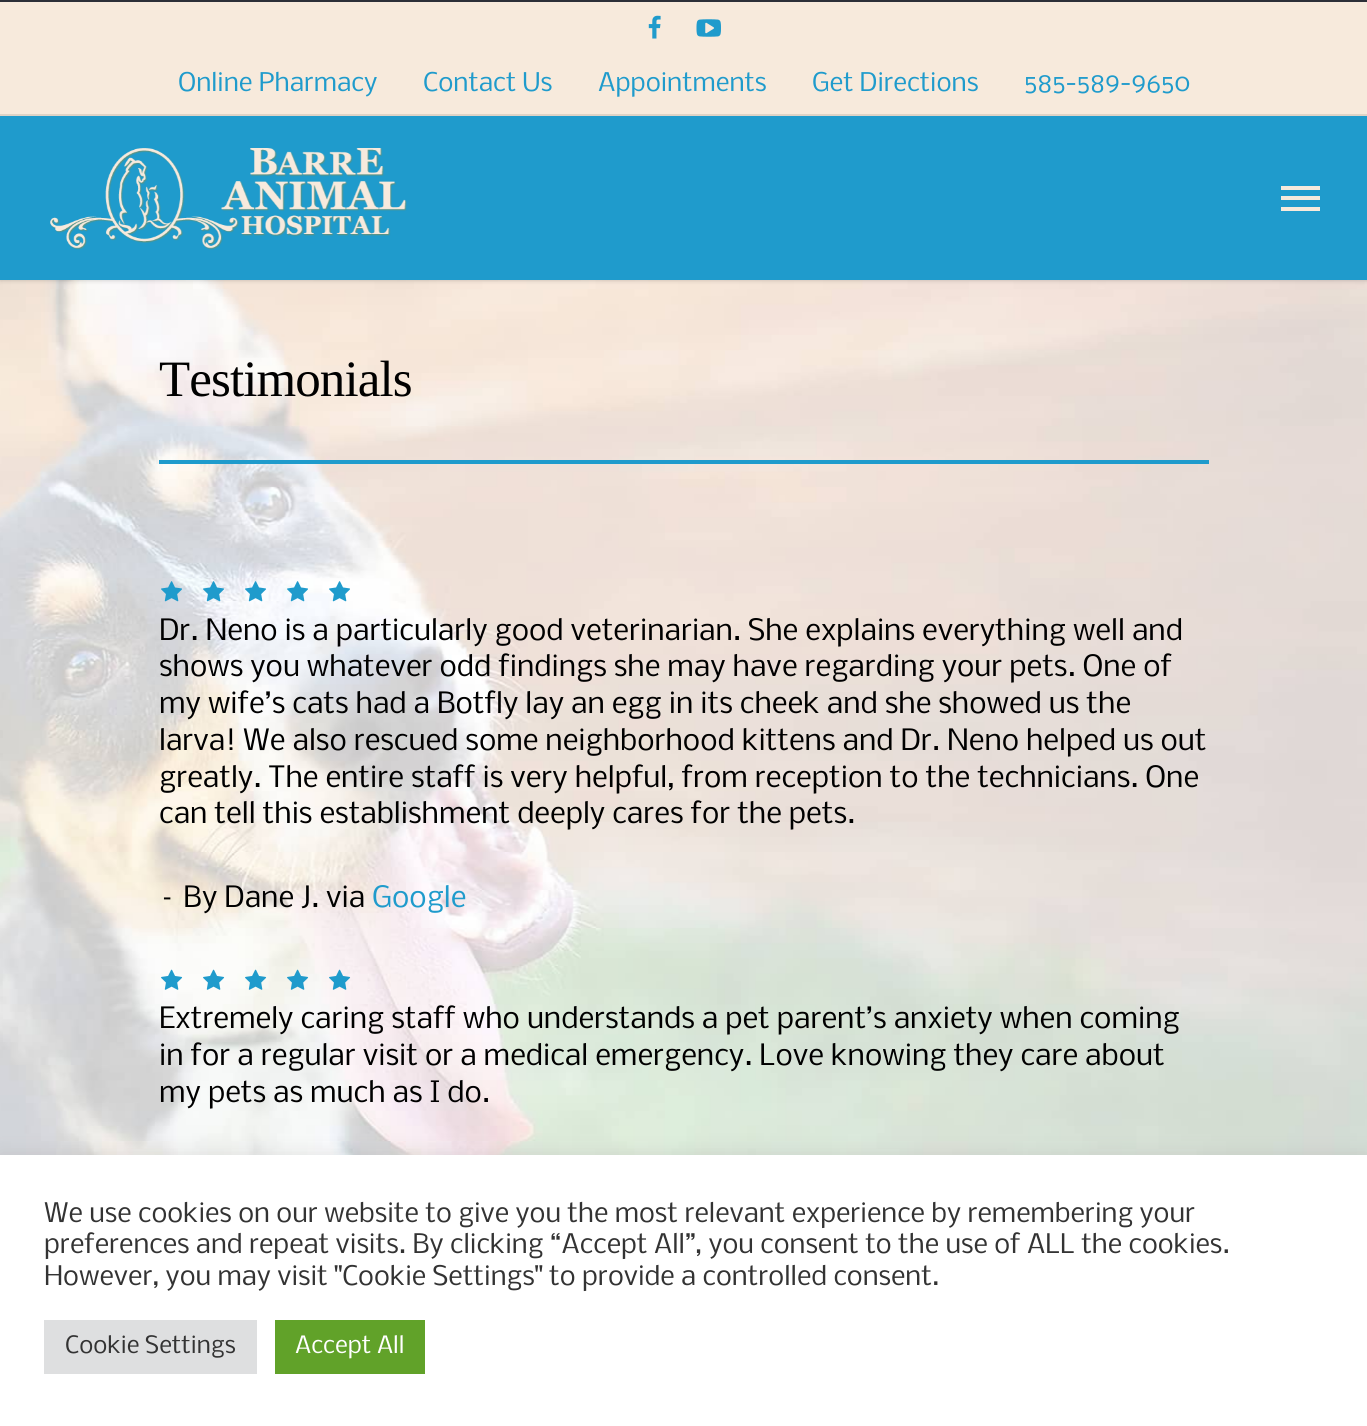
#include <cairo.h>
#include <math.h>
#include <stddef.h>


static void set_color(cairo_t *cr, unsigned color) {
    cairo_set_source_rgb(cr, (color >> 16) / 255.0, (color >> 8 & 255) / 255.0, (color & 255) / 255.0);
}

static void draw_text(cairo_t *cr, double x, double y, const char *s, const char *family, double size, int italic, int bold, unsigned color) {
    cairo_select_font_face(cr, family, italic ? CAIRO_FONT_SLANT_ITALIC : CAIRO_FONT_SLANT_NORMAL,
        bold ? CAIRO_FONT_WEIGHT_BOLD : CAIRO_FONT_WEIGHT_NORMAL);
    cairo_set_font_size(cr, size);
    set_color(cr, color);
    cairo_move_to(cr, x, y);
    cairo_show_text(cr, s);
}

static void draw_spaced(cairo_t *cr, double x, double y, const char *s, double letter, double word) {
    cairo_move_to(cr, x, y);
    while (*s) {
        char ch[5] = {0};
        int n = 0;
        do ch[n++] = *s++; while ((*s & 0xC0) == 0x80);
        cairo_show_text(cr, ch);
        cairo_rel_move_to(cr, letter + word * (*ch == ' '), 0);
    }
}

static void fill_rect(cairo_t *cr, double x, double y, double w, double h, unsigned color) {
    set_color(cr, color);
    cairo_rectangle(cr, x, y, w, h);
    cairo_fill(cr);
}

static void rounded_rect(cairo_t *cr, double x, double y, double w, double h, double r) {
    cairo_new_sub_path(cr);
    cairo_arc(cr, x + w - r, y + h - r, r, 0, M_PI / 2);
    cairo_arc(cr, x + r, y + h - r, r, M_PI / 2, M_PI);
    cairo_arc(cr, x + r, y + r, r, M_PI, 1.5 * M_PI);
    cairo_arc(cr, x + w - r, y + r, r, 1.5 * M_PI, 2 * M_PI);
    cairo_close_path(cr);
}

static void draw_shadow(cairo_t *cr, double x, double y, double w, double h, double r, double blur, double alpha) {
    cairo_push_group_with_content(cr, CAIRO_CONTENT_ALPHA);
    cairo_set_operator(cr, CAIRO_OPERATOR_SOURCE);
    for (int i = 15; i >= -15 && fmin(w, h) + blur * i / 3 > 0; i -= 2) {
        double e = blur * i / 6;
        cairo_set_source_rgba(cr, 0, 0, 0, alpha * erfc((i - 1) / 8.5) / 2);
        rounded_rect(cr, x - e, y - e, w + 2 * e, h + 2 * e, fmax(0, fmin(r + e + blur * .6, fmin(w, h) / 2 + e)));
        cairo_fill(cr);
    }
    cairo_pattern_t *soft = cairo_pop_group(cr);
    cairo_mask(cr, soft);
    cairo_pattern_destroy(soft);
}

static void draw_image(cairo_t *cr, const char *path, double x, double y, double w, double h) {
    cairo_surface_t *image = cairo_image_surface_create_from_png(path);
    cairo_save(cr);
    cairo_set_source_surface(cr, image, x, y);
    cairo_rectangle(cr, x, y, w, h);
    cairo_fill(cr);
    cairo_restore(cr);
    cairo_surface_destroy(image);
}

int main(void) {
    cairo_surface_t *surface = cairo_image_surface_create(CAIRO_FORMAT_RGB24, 1367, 1426);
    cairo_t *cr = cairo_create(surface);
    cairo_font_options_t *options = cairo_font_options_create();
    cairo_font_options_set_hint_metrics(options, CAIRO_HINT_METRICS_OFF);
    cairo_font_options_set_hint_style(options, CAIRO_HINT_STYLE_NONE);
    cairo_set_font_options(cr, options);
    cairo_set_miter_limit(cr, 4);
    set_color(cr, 0xFFFFFF);
    cairo_paint(cr);
    fill_rect(cr, 0, 0, 1367, 2, 0x2C2F38);
    draw_image(cr, "assets/img4.png", 0, 280, 1367, 875);
    set_color(cr, 0x000000);
    draw_shadow(cr, 0, 116, 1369, 164, 0, 2.5, 0.22);
    fill_rect(cr, 0, 2, 1367, 112, 0xF7EADC);
    fill_rect(cr, 0, 114, 1367, 2, 0xDED3C6);
    draw_image(cr, "assets/img1.png", 648, 15, 13, 24);
    draw_image(cr, "assets/img2.png", 696, 19, 25, 18);
    draw_text(cr, 178, 91, "Online Pharmacy", "Nobile", 24.5, 0, 0, 0x1F9BCC);
    draw_text(cr, 423, 91, "Contact Us", "Nobile", 24.5, 0, 0, 0x1F9BCC);
    draw_text(cr, 598, 91, "Appointments", "Nobile", 24.5, 0, 0, 0x1F9BCC);
    draw_text(cr, 812, 91, "Get Directions", "Nobile", 24.5, 0, 0, 0x1F9BCC);
    draw_text(cr, 1024, 91, "585-589-9650", "Nobile", 24.5, 0, 0, 0x1F9BCC);
    fill_rect(cr, 0, 116, 1367, 164, 0x1F9BCC);
    draw_image(cr, "assets/img3.png", 50, 148, 357, 102);
    fill_rect(cr, 1281, 186, 39, 4, 0xF7EADC);
    fill_rect(cr, 1281, 207, 39, 4, 0xF7EADC);
    fill_rect(cr, 1281, 196, 39, 4, 0xF7EADC);
    cairo_select_font_face(cr, "Tinos", CAIRO_FONT_SLANT_NORMAL, CAIRO_FONT_WEIGHT_NORMAL);
    cairo_set_font_size(cr, 51);
    set_color(cr, 0x000000);
    draw_spaced(cr, 159, 396, "Testimonials", -0.9, 0);
    fill_rect(cr, 159, 460, 1050, 4, 0x1F9BCC);
    draw_image(cr, "assets/img5.png", 161, 581, 21, 21);
    draw_image(cr, "assets/img6.png", 203, 581, 21, 21);
    draw_image(cr, "assets/img7.png", 245, 581, 21, 21);
    draw_image(cr, "assets/img8.png", 287, 581, 21, 21);
    draw_image(cr, "assets/img9.png", 329, 581, 21, 21);
    draw_text(cr, 159, 640, "Dr. Neno is a particularly good veterinarian. She explains everything well and", "Nobile", 28, 0, 0, 0x000000);
    draw_text(cr, 159, 676, "shows you whatever odd findings she may have regarding your pets. One of", "Nobile", 28, 0, 0, 0x000000);
    draw_text(cr, 159, 713, "my wife’s cats had a Botfly lay an egg in its cheek and she showed us the", "Nobile", 28, 0, 0, 0x000000);
    draw_text(cr, 159, 750, "larva! We also rescued some neighborhood kittens and Dr. Neno helped us out", "Nobile", 28, 0, 0, 0x000000);
    draw_text(cr, 159, 787, "greatly. The entire staff is very helpful, from reception to the technicians. One", "Nobile", 28, 0, 0, 0x000000);
    draw_text(cr, 159, 823, "can tell this establishment deeply cares for the pets.", "Nobile", 28, 0, 0, 0x000000);
    draw_text(cr, 159, 907, "– By Dane J. via", "Nobile", 28, 0, 0, 0x000000);
    draw_text(cr, 372, 907, "Google", "Nobile", 28, 0, 0, 0x1F9BCC);
    draw_image(cr, "assets/img10.png", 161, 969, 22, 21);
    draw_image(cr, "assets/img11.png", 203, 969, 22, 21);
    draw_image(cr, "assets/img12.png", 245, 969, 22, 21);
    draw_image(cr, "assets/img13.png", 287, 969, 22, 21);
    draw_image(cr, "assets/img14.png", 329, 969, 22, 21);
    draw_text(cr, 159, 1028, "Extremely caring staff who understands a pet parent’s anxiety when coming", "Nobile", 28, 0, 0, 0x000000);
    draw_text(cr, 159, 1065, "in for a regular visit or a medical emergency. Love knowing they care about", "Nobile", 28, 0, 0, 0x000000);
    draw_text(cr, 159, 1102, "my pets as much as I do.", "Nobile", 28, 0, 0, 0x000000);
    set_color(cr, 0xACABAB);
    draw_shadow(cr, 0, 1153, 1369, 272, 0, 9, 0.3);
    fill_rect(cr, 0, 1155, 1367, 271, 0xFFFFFF);
    draw_text(cr, 44, 1222, "We use cookies on our website to give you the most relevant experience by remembering your", "Nobile", 25.65, 0, 0, 0x333333);
    draw_text(cr, 44, 1253, "preferences and repeat visits. By clicking “Accept All”, you consent to the use of ALL the cookies.", "Nobile", 25.65, 0, 0, 0x333333);
    draw_text(cr, 44, 1285, "However, you may visit \"Cookie Settings\" to provide a controlled consent.", "Nobile", 25.65, 0, 0, 0x333333);
    fill_rect(cr, 44, 1320, 213, 54, 0xDEDFE0);
    draw_text(cr, 65, 1353, "Cookie Settings", "Nobile", 22.75, 0, 0, 0x333333);
    fill_rect(cr, 275, 1320, 150, 54, 0x61A229);
    draw_text(cr, 295, 1353, "Accept All", "Nobile", 22.75, 0, 0, 0xFFFFFF);
    cairo_surface_write_to_png(surface, "output.png");
    cairo_font_options_destroy(options);
    cairo_destroy(cr);
    cairo_surface_destroy(surface);
    return 0;
}
